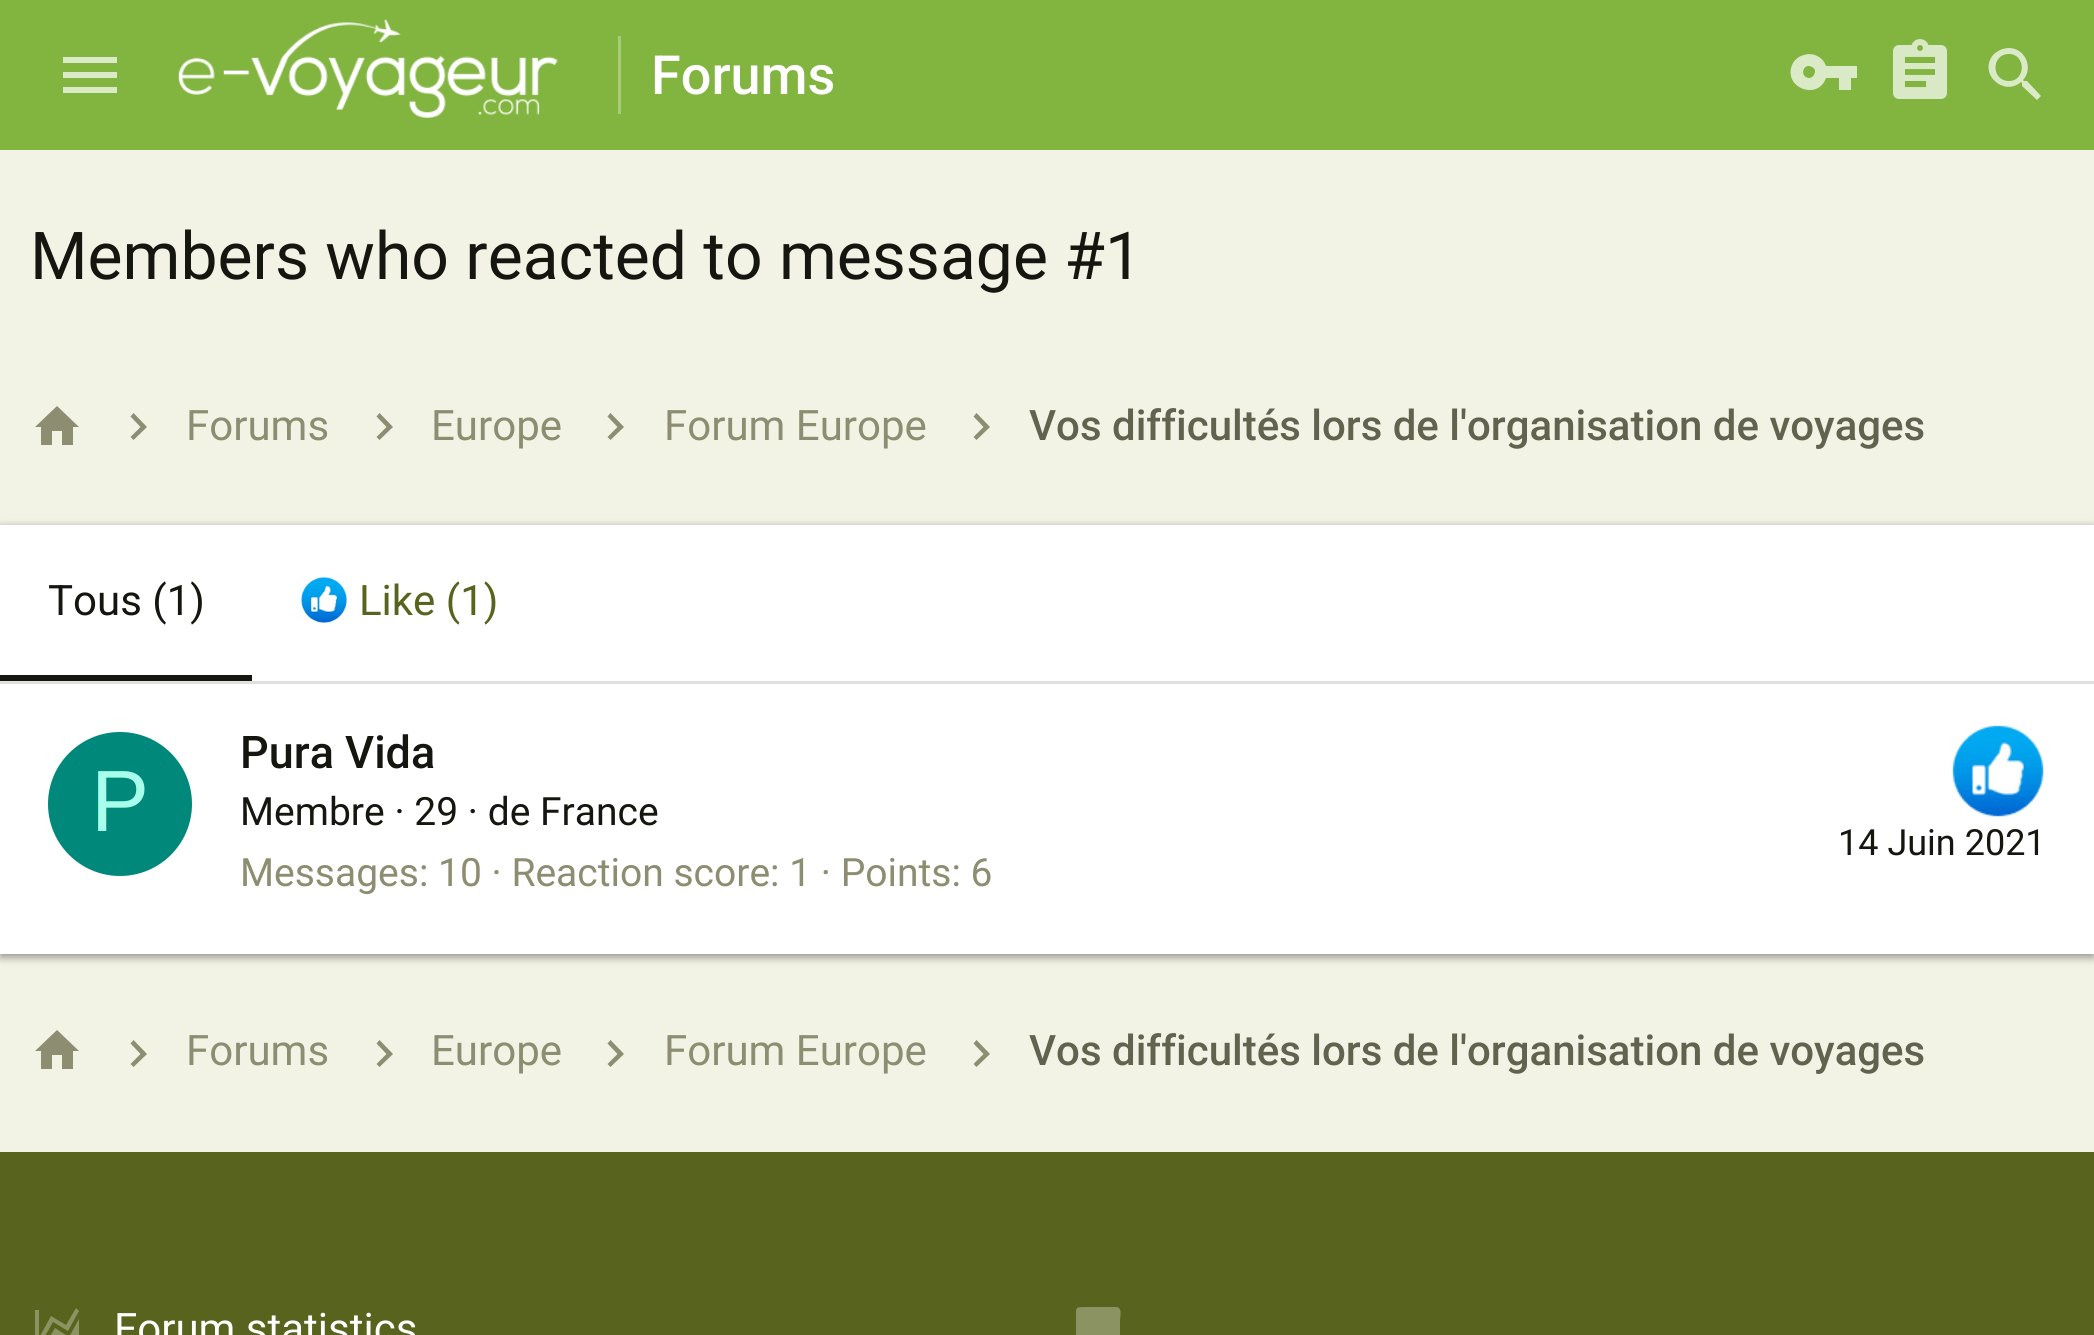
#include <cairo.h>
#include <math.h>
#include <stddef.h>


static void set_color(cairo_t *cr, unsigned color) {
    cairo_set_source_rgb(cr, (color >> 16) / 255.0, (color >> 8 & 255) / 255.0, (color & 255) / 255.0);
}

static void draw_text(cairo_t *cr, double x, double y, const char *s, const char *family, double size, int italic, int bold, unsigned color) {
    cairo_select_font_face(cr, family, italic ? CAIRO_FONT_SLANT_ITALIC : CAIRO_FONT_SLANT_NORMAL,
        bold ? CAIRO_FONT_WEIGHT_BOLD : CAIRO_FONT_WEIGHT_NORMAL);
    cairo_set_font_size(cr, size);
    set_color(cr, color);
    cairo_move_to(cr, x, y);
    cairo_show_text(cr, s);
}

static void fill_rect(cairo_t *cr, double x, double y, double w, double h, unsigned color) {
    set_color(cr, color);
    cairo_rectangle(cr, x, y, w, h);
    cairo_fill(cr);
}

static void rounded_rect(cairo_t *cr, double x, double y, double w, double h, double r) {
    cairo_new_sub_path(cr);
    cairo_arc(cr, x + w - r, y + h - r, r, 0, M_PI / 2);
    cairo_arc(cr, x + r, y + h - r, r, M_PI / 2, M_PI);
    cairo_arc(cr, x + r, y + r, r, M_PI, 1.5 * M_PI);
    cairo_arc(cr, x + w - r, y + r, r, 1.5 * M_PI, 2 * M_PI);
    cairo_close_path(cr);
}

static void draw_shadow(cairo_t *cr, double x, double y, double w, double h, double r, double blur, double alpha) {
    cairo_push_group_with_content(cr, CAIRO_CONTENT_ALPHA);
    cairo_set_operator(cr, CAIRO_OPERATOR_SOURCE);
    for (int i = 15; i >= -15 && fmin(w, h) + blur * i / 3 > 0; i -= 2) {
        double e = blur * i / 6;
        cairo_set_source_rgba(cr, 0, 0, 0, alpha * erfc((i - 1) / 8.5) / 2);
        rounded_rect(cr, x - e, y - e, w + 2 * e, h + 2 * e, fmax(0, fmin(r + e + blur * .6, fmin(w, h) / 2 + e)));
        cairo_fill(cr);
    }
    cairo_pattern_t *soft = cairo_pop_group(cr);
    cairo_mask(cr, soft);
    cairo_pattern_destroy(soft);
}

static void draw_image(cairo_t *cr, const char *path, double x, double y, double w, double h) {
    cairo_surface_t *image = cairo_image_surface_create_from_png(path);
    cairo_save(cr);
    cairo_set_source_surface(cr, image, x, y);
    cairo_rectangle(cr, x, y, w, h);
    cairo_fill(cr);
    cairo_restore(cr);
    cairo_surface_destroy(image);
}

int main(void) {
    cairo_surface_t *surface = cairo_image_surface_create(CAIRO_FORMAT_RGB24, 2094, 1335);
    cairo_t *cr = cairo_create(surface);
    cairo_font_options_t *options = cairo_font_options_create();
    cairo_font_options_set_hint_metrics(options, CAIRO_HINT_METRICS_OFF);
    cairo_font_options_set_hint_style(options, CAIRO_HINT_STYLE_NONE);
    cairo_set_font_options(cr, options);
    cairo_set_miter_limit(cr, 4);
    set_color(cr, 0xF2F2E5);
    cairo_paint(cr);
    fill_rect(cr, 0, 0, 2094, 150, 0x82B440);
    set_color(cr, 0xDAE9C6);
    cairo_new_path(cr);
    cairo_move_to(cr, 63, 57);
    cairo_line_to(cr, 117, 57);
    cairo_line_to(cr, 117, 63);
    cairo_line_to(cr, 63, 63);
    cairo_close_path(cr);
    cairo_move_to(cr, 63, 72);
    cairo_line_to(cr, 117, 72);
    cairo_line_to(cr, 117, 78);
    cairo_line_to(cr, 63, 78);
    cairo_close_path(cr);
    cairo_move_to(cr, 63, 87);
    cairo_line_to(cr, 117, 87);
    cairo_line_to(cr, 117, 93);
    cairo_line_to(cr, 63, 93);
    cairo_close_path(cr);
    cairo_fill(cr);
    draw_image(cr, "assets/img1.png", 178, 19, 380, 99);
    fill_rect(cr, 618, 36, 3, 78, 0xA8CB79);
    draw_text(cr, 651, 94, "Forums", "Roboto Medium", 54, 0, 0, 0xFFFFFF);
    set_color(cr, 0xDAE9C6);
    cairo_new_path(cr);
    cairo_move_to(cr, 1809, 78);
    cairo_curve_to(cr, 1799, 77, 1803, 62, 1812, 67);
    cairo_curve_to(cr, 1814, 68, 1815, 69, 1815, 71);
    cairo_curve_to(cr, 1815, 75, 1812, 78, 1809, 78);
    cairo_close_path(cr);
    cairo_move_to(cr, 1826, 66);
    cairo_curve_to(cr, 1823, 57, 1813, 52, 1804, 55);
    cairo_curve_to(cr, 1799, 56, 1794, 60, 1792, 65);
    cairo_curve_to(cr, 1783, 88, 1818, 101, 1826, 78);
    cairo_line_to(cr, 1839, 78);
    cairo_line_to(cr, 1839, 90);
    cairo_line_to(cr, 1851, 90);
    cairo_line_to(cr, 1851, 78);
    cairo_line_to(cr, 1857, 78);
    cairo_line_to(cr, 1857, 66);
    cairo_close_path(cr);
    cairo_fill(cr);
    draw_image(cr, "assets/img2.png", 1893, 39, 54, 60);
    cairo_new_path(cr);
    cairo_move_to(cr, 2009, 48);
    cairo_curve_to(cr, 2025, 48, 2034, 68, 2023, 80);
    cairo_line_to(cr, 2024, 81);
    cairo_line_to(cr, 2027, 81);
    cairo_line_to(cr, 2041, 96);
    cairo_line_to(cr, 2037, 100);
    cairo_line_to(cr, 2022, 86);
    cairo_line_to(cr, 2022, 83);
    cairo_line_to(cr, 2021, 82);
    cairo_curve_to(cr, 2004, 97, 1978, 74, 1993, 55);
    cairo_curve_to(cr, 1997, 51, 2003, 48, 2009, 48);
    cairo_close_path(cr);
    cairo_move_to(cr, 2009, 54);
    cairo_curve_to(cr, 1991, 54, 1991, 81, 2009, 81);
    cairo_curve_to(cr, 2026, 81, 2026, 54, 2009, 54);
    cairo_close_path(cr);
    cairo_fill(cr);
    draw_text(cr, 30, 279, "Members who reacted to message #1", "Roboto", 66, 0, 0, 0x161611);
    set_color(cr, 0x8D8D71);
    cairo_new_path(cr);
    cairo_move_to(cr, 52, 445);
    cairo_line_to(cr, 52, 431);
    cairo_line_to(cr, 62, 431);
    cairo_line_to(cr, 62, 445);
    cairo_line_to(cr, 73, 445);
    cairo_line_to(cr, 73, 427);
    cairo_line_to(cr, 79, 427);
    cairo_line_to(cr, 57, 406);
    cairo_line_to(cr, 35, 427);
    cairo_line_to(cr, 41, 427);
    cairo_line_to(cr, 41, 445);
    cairo_close_path(cr);
    cairo_fill(cr);
    cairo_new_path(cr);
    cairo_move_to(cr, 130.5, 437);
    cairo_line_to(cr, 140.5, 427);
    cairo_line_to(cr, 130.5, 416.5);
    cairo_line_to(cr, 133.5, 413);
    cairo_line_to(cr, 147, 427);
    cairo_line_to(cr, 133.5, 440);
    cairo_close_path(cr);
    cairo_fill(cr);
    draw_text(cr, 186, 440, "Forums", "Roboto", 42, 0, 0, 0x8D8D71);
    cairo_new_path(cr);
    cairo_move_to(cr, 376.5, 437);
    cairo_line_to(cr, 386.5, 427);
    cairo_line_to(cr, 376.5, 416.5);
    cairo_line_to(cr, 379.5, 413);
    cairo_line_to(cr, 393, 427);
    cairo_line_to(cr, 379.5, 440);
    cairo_close_path(cr);
    cairo_fill(cr);
    draw_text(cr, 431, 440, "Europe", "Roboto", 42, 0, 0, 0x8D8D71);
    cairo_new_path(cr);
    cairo_move_to(cr, 607.5, 437);
    cairo_line_to(cr, 617.5, 427);
    cairo_line_to(cr, 607.5, 416.5);
    cairo_line_to(cr, 610.5, 413);
    cairo_line_to(cr, 624, 427);
    cairo_line_to(cr, 610.5, 440);
    cairo_close_path(cr);
    cairo_fill(cr);
    draw_text(cr, 664, 440, "Forum Europe", "Roboto", 42, 0, 0, 0x8D8D71);
    cairo_new_path(cr);
    cairo_move_to(cr, 973.5, 437);
    cairo_line_to(cr, 983.5, 427);
    cairo_line_to(cr, 973.5, 416.5);
    cairo_line_to(cr, 976.5, 413);
    cairo_line_to(cr, 990, 427);
    cairo_line_to(cr, 976.5, 440);
    cairo_close_path(cr);
    cairo_fill(cr);
    draw_text(cr, 1029, 440, "Vos difficultés lors de l'organisation de voyages", "Roboto Medium", 42, 0, 0, 0x62624F);
    set_color(cr, 0x000000);
    draw_shadow(cr, 0, 528, 2094, 429, 0, 4.5, 0.2);
    draw_shadow(cr, 0, 531, 2094, 429, 0, 3, 0.12);
    draw_shadow(cr, 0, 525, 2094, 429, 0, 3, 0.14);
    fill_rect(cr, 0, 525, 2094, 429, 0xFFFFFF);
    fill_rect(cr, 0, 681, 2094, 3, 0xE0E0E0);
    fill_rect(cr, 0, 675, 252, 6, 0x161611);
    draw_text(cr, 48, 615, "Tous (1)", "Roboto", 42, 0, 0, 0x161611);
    draw_image(cr, "assets/img3.png", 301, 577, 46, 46);
    draw_text(cr, 359, 615, "Like (1)", "Roboto", 42, 0, 0, 0x58641D);
    set_color(cr, 0x00897B);
    cairo_new_path(cr);
    cairo_arc(cr, 120, 804, 72, 0, 2 * M_PI);
    cairo_fill(cr);
    draw_text(cr, 91, 831, "P", "Liberation Sans", 87, 0, 0, 0xA7FFEB);
    draw_text(cr, 240, 768, "Pura Vida", "Roboto Medium", 45, 0, 0, 0x161611);
    draw_text(cr, 240, 825, "Membre · 29 · de France", "Roboto", 39, 0, 0, 0x161611);
    draw_image(cr, "assets/img4.png", 1952, 725, 92, 92);
    draw_text(cr, 1838, 855, "14 Juin 2021", "Roboto", 36, 0, 0, 0x161611);
    draw_text(cr, 240, 886, "Messages: 10 · Reaction score: 1 · Points: 6", "Roboto", 39, 0, 0, 0x8D8D71);
    cairo_new_path(cr);
    cairo_move_to(cr, 52, 1069);
    cairo_line_to(cr, 52, 1055);
    cairo_line_to(cr, 62, 1055);
    cairo_line_to(cr, 62, 1069);
    cairo_line_to(cr, 73, 1069);
    cairo_line_to(cr, 73, 1051);
    cairo_line_to(cr, 79, 1051);
    cairo_line_to(cr, 57, 1030);
    cairo_line_to(cr, 35, 1051);
    cairo_line_to(cr, 41, 1051);
    cairo_line_to(cr, 41, 1069);
    cairo_close_path(cr);
    cairo_fill(cr);
    cairo_new_path(cr);
    cairo_move_to(cr, 130.5, 1064);
    cairo_line_to(cr, 140.5, 1054);
    cairo_line_to(cr, 130.5, 1043.5);
    cairo_line_to(cr, 133.5, 1040);
    cairo_line_to(cr, 147, 1054);
    cairo_line_to(cr, 133.5, 1067);
    cairo_close_path(cr);
    cairo_fill(cr);
    draw_text(cr, 186, 1065, "Forums", "Roboto", 42, 0, 0, 0x8D8D71);
    cairo_new_path(cr);
    cairo_move_to(cr, 376.5, 1064);
    cairo_line_to(cr, 386.5, 1054);
    cairo_line_to(cr, 376.5, 1043.5);
    cairo_line_to(cr, 379.5, 1040);
    cairo_line_to(cr, 393, 1054);
    cairo_line_to(cr, 379.5, 1067);
    cairo_close_path(cr);
    cairo_fill(cr);
    draw_text(cr, 431, 1065, "Europe", "Roboto", 42, 0, 0, 0x8D8D71);
    cairo_new_path(cr);
    cairo_move_to(cr, 607.5, 1064);
    cairo_line_to(cr, 617.5, 1054);
    cairo_line_to(cr, 607.5, 1043.5);
    cairo_line_to(cr, 610.5, 1040);
    cairo_line_to(cr, 624, 1054);
    cairo_line_to(cr, 610.5, 1067);
    cairo_close_path(cr);
    cairo_fill(cr);
    draw_text(cr, 664, 1065, "Forum Europe", "Roboto", 42, 0, 0, 0x8D8D71);
    cairo_new_path(cr);
    cairo_move_to(cr, 973.5, 1064);
    cairo_line_to(cr, 983.5, 1054);
    cairo_line_to(cr, 973.5, 1043.5);
    cairo_line_to(cr, 976.5, 1040);
    cairo_line_to(cr, 990, 1054);
    cairo_line_to(cr, 976.5, 1067);
    cairo_close_path(cr);
    cairo_fill(cr);
    draw_text(cr, 1029, 1065, "Vos difficultés lors de l'organisation de voyages", "Roboto Medium", 42, 0, 0, 0x62624F);
    fill_rect(cr, 0, 1152, 2094, 183, 0x58641D);
    set_color(cr, 0x8A9361);
    cairo_new_path(cr);
    cairo_move_to(cr, 69, 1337);
    cairo_line_to(cr, 79, 1319);
    cairo_line_to(cr, 79, 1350);
    cairo_line_to(cr, 35, 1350);
    cairo_line_to(cr, 35, 1310);
    cairo_line_to(cr, 39, 1310);
    cairo_line_to(cr, 39, 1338);
    cairo_line_to(cr, 51, 1316);
    cairo_line_to(cr, 66, 1325);
    cairo_line_to(cr, 76, 1308);
    cairo_line_to(cr, 79, 1311);
    cairo_line_to(cr, 68, 1331);
    cairo_line_to(cr, 53, 1322);
    cairo_line_to(cr, 40, 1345);
    cairo_line_to(cr, 45, 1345);
    cairo_line_to(cr, 55, 1328);
    cairo_close_path(cr);
    cairo_fill(cr);
    draw_text(cr, 114, 1343, "Forum statistics", "Roboto", 42, 0, 0, 0xFFFFFF);
    set_color(cr, 0x8A9361);
    cairo_new_path(cr);
    cairo_move_to(cr, 1116, 1307);
    cairo_line_to(cr, 1086, 1307);
    cairo_curve_to(cr, 1075, 1307, 1076, 1307, 1076, 1318);
    cairo_line_to(cr, 1076, 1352);
    cairo_line_to(cr, 1084, 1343);
    cairo_line_to(cr, 1111, 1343);
    cairo_curve_to(cr, 1120, 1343, 1120, 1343, 1120, 1334);
    cairo_line_to(cr, 1120, 1321);
    cairo_curve_to(cr, 1120, 1317, 1123, 1307, 1116, 1307);
    cairo_close_path(cr);
    cairo_fill(cr);
    cairo_surface_write_to_png(surface, "output.png");
    cairo_font_options_destroy(options);
    cairo_destroy(cr);
    cairo_surface_destroy(surface);
    return 0;
}
